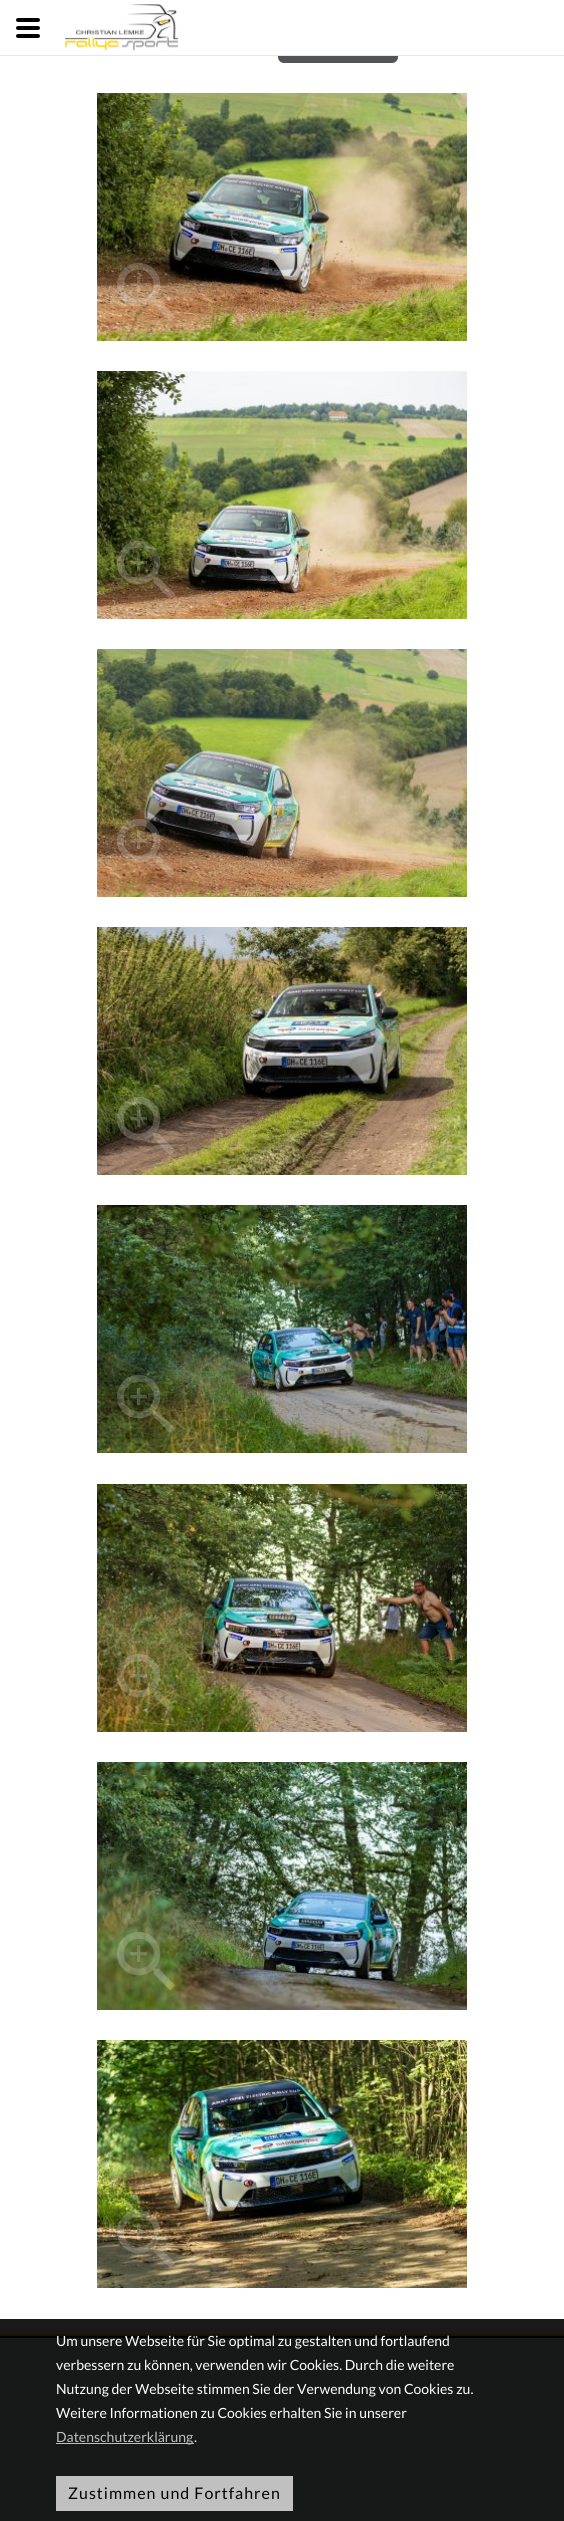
#include <cairo.h>
#include <math.h>
#include <stddef.h>


static void set_color(cairo_t *cr, unsigned color) {
    cairo_set_source_rgb(cr, (color >> 16) / 255.0, (color >> 8 & 255) / 255.0, (color & 255) / 255.0);
}

static void draw_text(cairo_t *cr, double x, double y, const char *s, const char *family, double size, int italic, int bold, unsigned color) {
    cairo_select_font_face(cr, family, italic ? CAIRO_FONT_SLANT_ITALIC : CAIRO_FONT_SLANT_NORMAL,
        bold ? CAIRO_FONT_WEIGHT_BOLD : CAIRO_FONT_WEIGHT_NORMAL);
    cairo_set_font_size(cr, size);
    set_color(cr, color);
    cairo_move_to(cr, x, y);
    cairo_show_text(cr, s);
}

static void draw_spaced(cairo_t *cr, double x, double y, const char *s, double letter, double word) {
    cairo_move_to(cr, x, y);
    while (*s) {
        char ch[5] = {0};
        int n = 0;
        do ch[n++] = *s++; while ((*s & 0xC0) == 0x80);
        cairo_show_text(cr, ch);
        cairo_rel_move_to(cr, letter + word * (*ch == ' '), 0);
    }
}

static void fill_rect(cairo_t *cr, double x, double y, double w, double h, unsigned color) {
    set_color(cr, color);
    cairo_rectangle(cr, x, y, w, h);
    cairo_fill(cr);
}

static void rounded_rect(cairo_t *cr, double x, double y, double w, double h, double r) {
    cairo_new_sub_path(cr);
    cairo_arc(cr, x + w - r, y + h - r, r, 0, M_PI / 2);
    cairo_arc(cr, x + r, y + h - r, r, M_PI / 2, M_PI);
    cairo_arc(cr, x + r, y + r, r, M_PI, 1.5 * M_PI);
    cairo_arc(cr, x + w - r, y + r, r, 1.5 * M_PI, 2 * M_PI);
    cairo_close_path(cr);
}

static void draw_image(cairo_t *cr, const char *path, double x, double y, double w, double h) {
    cairo_surface_t *image = cairo_image_surface_create_from_png(path);
    cairo_save(cr);
    cairo_set_source_surface(cr, image, x, y);
    cairo_rectangle(cr, x, y, w, h);
    cairo_fill(cr);
    cairo_restore(cr);
    cairo_surface_destroy(image);
}

int main(void) {
    cairo_surface_t *surface = cairo_image_surface_create(CAIRO_FORMAT_RGB24, 564, 2521);
    cairo_t *cr = cairo_create(surface);
    cairo_font_options_t *options = cairo_font_options_create();
    cairo_font_options_set_hint_metrics(options, CAIRO_HINT_METRICS_OFF);
    cairo_font_options_set_hint_style(options, CAIRO_HINT_STYLE_NONE);
    cairo_set_font_options(cr, options);
    cairo_set_miter_limit(cr, 4);
    set_color(cr, 0xFFFFFF);
    cairo_paint(cr);
    fill_rect(cr, 0, 2319, 564, 15, 0x191919);
    set_color(cr, 0x000000);
    cairo_new_path(cr);
    cairo_move_to(cr, 38, 30);
    cairo_line_to(cr, 18, 30);
    cairo_curve_to(cr, 17, 30, 16, 29, 16, 28);
    cairo_curve_to(cr, 16, 27, 17, 26, 18, 26);
    cairo_line_to(cr, 38, 26);
    cairo_curve_to(cr, 39, 26, 40, 27, 40, 28);
    cairo_curve_to(cr, 40, 29, 39, 30, 38, 30);
    cairo_close_path(cr);
    cairo_move_to(cr, 38, 38);
    cairo_line_to(cr, 18, 38);
    cairo_curve_to(cr, 17, 38, 16, 37, 16, 36);
    cairo_curve_to(cr, 16, 35, 17, 34, 18, 34);
    cairo_line_to(cr, 38, 34);
    cairo_curve_to(cr, 39, 34, 40, 35, 40, 36);
    cairo_curve_to(cr, 40, 37, 39, 38, 38, 38);
    cairo_close_path(cr);
    cairo_move_to(cr, 38, 22);
    cairo_line_to(cr, 18, 22);
    cairo_curve_to(cr, 17, 22, 16, 21, 16, 20);
    cairo_curve_to(cr, 16, 19, 17, 18, 18, 18);
    cairo_line_to(cr, 38, 18);
    cairo_curve_to(cr, 39, 18, 40, 19, 40, 20);
    cairo_curve_to(cr, 40, 21, 39, 22, 38, 22);
    cairo_close_path(cr);
    cairo_fill(cr);
    draw_image(cr, "assets/img1.png", 65, 4, 114, 47);
    set_color(cr, 0x535457);
    rounded_rect(cr, 278, 20, 120, 43, 6);
    cairo_fill(cr);
    fill_rect(cr, 278, 20, 120, 35, 0xFFFFFF);
    fill_rect(cr, 0, 55, 564, 1, 0xE5E7E9);
    draw_image(cr, "assets/img2.png", 97, 93, 370, 248);
    draw_image(cr, "assets/img3.png", 117, 263, 58, 58);
    draw_image(cr, "assets/img4.png", 97, 371, 370, 248);
    draw_image(cr, "assets/img5.png", 117, 541, 58, 58);
    draw_image(cr, "assets/img6.png", 97, 649, 370, 248);
    draw_image(cr, "assets/img7.png", 117, 819, 58, 58);
    draw_image(cr, "assets/img8.png", 97, 927, 370, 248);
    draw_image(cr, "assets/img9.png", 117, 1097, 58, 58);
    draw_image(cr, "assets/img10.png", 97, 1205, 370, 248);
    draw_image(cr, "assets/img11.png", 117, 1375, 58, 58);
    draw_image(cr, "assets/img12.png", 97, 1484, 370, 248);
    draw_image(cr, "assets/img13.png", 117, 1654, 58, 58);
    draw_image(cr, "assets/img14.png", 97, 1762, 370, 248);
    draw_image(cr, "assets/img15.png", 117, 1932, 58, 58);
    draw_image(cr, "assets/img16.png", 97, 2040, 370, 248);
    draw_image(cr, "assets/img17.png", 117, 2210, 58, 58);
    fill_rect(cr, 0, 2336, 564, 2, 0x000000);
    fill_rect(cr, 0, 2334, 564, 2, 0x191500);
    fill_rect(cr, 0, 2338, 564, 183, 0x171818);
    draw_text(cr, 56, 2346, "Um unsere Webseite für Sie optimal zu gestalten und fortlaufend", "Lato", 14, 0, 0, 0xFFFFFF);
    draw_text(cr, 56, 2370, "verbessern zu können, verwenden wir Cookies. Durch die weitere", "Lato", 14, 0, 0, 0xFFFFFF);
    draw_text(cr, 56, 2394, "Nutzung der Webseite stimmen Sie der Verwendung von Cookies zu.", "Lato", 14, 0, 0, 0xFFFFFF);
    draw_text(cr, 56, 2418, "Weitere Informationen zu Cookies erhalten Sie in unserer", "Lato", 14, 0, 0, 0xFFFFFF);
    fill_rect(cr, 56, 2443, 138, 1, 0xC0C0C0);
    draw_text(cr, 56, 2442, "Datenschutzerklärung", "Lato", 14, 0, 0, 0xC0C0C0);
    draw_text(cr, 194, 2442, ".", "Lato", 14, 0, 0, 0xFFFFFF);
    fill_rect(cr, 56, 2476, 237, 35, 0xC0C0C0);
    cairo_set_font_size(cr, 16);
    set_color(cr, 0x000000);
    draw_spaced(cr, 68, 2499, "Zustimmen und Fortfahren", 1, 0);
    cairo_surface_write_to_png(surface, "output.png");
    cairo_font_options_destroy(options);
    cairo_destroy(cr);
    cairo_surface_destroy(surface);
    return 0;
}
